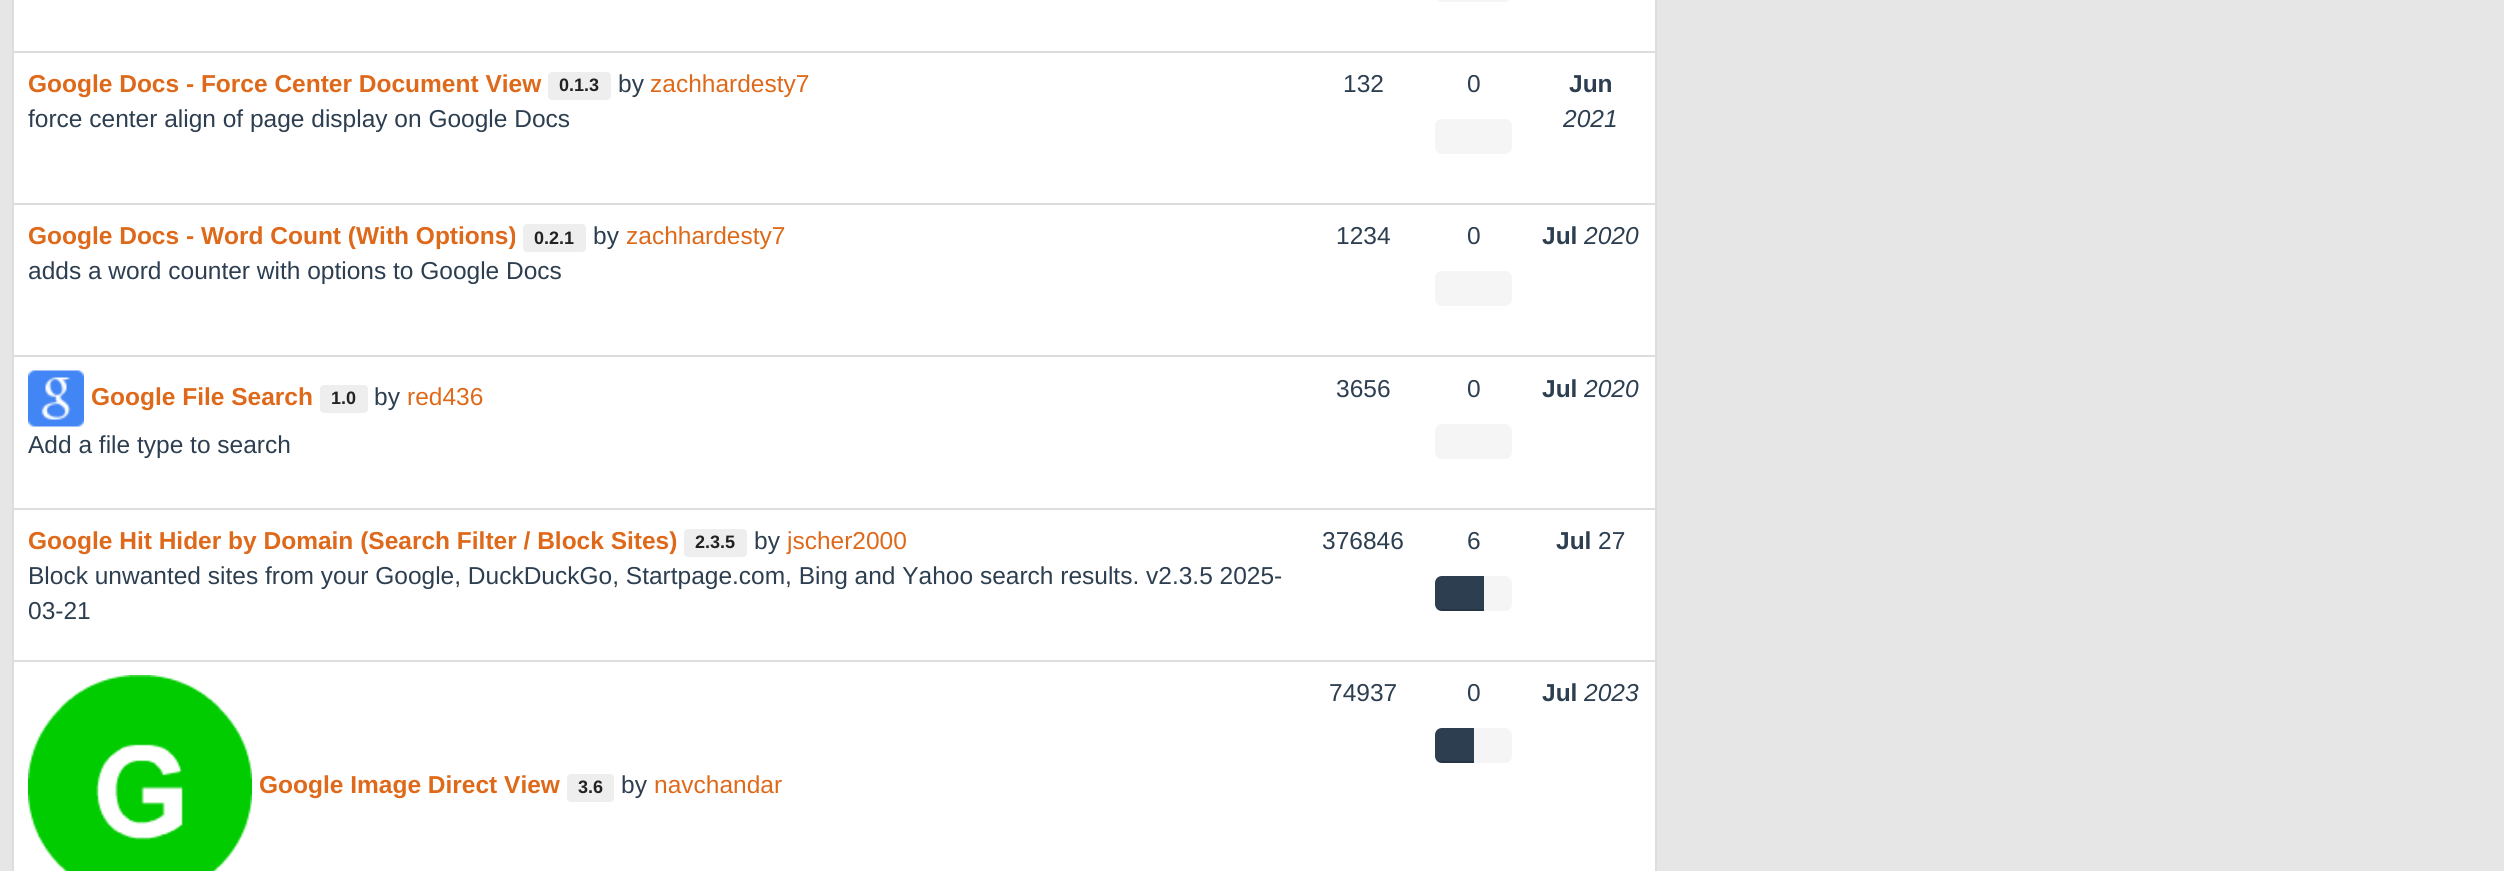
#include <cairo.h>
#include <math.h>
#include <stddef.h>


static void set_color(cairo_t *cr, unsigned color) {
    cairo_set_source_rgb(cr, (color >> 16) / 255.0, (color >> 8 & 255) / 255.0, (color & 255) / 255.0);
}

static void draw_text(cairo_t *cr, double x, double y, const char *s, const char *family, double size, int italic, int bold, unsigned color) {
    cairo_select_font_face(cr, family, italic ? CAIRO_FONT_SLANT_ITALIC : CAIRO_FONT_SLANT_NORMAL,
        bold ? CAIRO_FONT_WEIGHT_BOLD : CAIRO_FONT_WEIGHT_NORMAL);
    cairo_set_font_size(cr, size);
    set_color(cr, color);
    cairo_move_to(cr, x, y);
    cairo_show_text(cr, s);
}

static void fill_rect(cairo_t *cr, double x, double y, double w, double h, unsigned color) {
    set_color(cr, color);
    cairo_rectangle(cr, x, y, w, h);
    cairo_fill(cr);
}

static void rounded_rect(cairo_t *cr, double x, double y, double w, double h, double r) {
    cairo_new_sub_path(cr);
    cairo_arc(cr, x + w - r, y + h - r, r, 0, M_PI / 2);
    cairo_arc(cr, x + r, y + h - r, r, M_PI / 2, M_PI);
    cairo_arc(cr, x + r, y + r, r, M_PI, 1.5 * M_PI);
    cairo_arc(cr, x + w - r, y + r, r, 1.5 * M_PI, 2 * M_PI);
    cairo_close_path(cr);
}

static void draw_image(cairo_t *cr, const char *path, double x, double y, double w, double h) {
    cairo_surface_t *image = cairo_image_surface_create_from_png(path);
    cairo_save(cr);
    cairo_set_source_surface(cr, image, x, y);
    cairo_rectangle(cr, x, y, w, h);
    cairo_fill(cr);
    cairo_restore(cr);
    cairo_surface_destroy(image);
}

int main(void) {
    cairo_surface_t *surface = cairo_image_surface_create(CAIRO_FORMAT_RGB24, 2504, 871);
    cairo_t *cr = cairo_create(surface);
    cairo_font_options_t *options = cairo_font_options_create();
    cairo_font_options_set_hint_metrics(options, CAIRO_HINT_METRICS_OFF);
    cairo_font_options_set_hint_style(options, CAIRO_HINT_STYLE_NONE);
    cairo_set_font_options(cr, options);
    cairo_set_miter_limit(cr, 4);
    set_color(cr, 0xE6E6E6);
    cairo_paint(cr);
    set_color(cr, 0xFFFFFF);
    cairo_rectangle(cr, 13, -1, 1643, 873);
    cairo_fill_preserve(cr);
    set_color(cr, 0xDDDDDD);
    cairo_stroke(cr);
    set_color(cr, 0xF5F5F5);
    rounded_rect(cr, 1435, -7, 77, 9, 7);
    cairo_fill(cr);
    draw_text(cr, 28, 92, "Google Docs - Force Center Document View", "Liberation Sans", 24.5, 0, 1, 0xDF691A);
    set_color(cr, 0xEEEEEE);
    rounded_rect(cr, 548, 72, 63, 28, 4);
    cairo_fill(cr);
    draw_text(cr, 559, 91, "0.1.3", "Liberation Sans", 18, 0, 1, 0x222222);
    draw_text(cr, 618, 92, "by", "Liberation Sans", 24.5, 0, 0, 0x2C3E50);
    draw_text(cr, 650, 92, "zachhardesty7", "Liberation Sans", 24.5, 0, 0, 0xDF691A);
    draw_text(cr, 28, 127, "force center align of page display on Google Docs", "Liberation Sans", 24.5, 0, 0, 0x2C3E50);
    draw_text(cr, 1343, 92, "132", "Liberation Sans", 24.5, 0, 0, 0x2C3E50);
    draw_text(cr, 1467, 92, "0", "Liberation Sans", 24.5, 0, 0, 0x2C3E50);
    set_color(cr, 0xF5F5F5);
    rounded_rect(cr, 1435, 119, 77, 35, 7);
    cairo_fill(cr);
    fill_rect(cr, 14, 51, 1643, 2, 0xDDDDDD);
    draw_text(cr, 1569, 92, "Jun", "Liberation Sans", 24.5, 0, 1, 0x2C3E50);
    draw_text(cr, 1563, 127, "2021", "Liberation Sans", 24.5, 1, 0, 0x2C3E50);
    draw_text(cr, 28, 244, "Google Docs - Word Count (With Options)", "Liberation Sans", 24.5, 0, 1, 0xDF691A);
    set_color(cr, 0xEEEEEE);
    rounded_rect(cr, 523, 224, 63, 28, 4);
    cairo_fill(cr);
    draw_text(cr, 534, 244, "0.2.1", "Liberation Sans", 18, 0, 1, 0x222222);
    draw_text(cr, 593, 244, "by", "Liberation Sans", 24.5, 0, 0, 0x2C3E50);
    draw_text(cr, 626, 244, "zachhardesty7", "Liberation Sans", 24.5, 0, 0, 0xDF691A);
    draw_text(cr, 28, 279, "adds a word counter with options to Google Docs", "Liberation Sans", 24.5, 0, 0, 0x2C3E50);
    draw_text(cr, 1336, 244, "1234", "Liberation Sans", 24.5, 0, 0, 0x2C3E50);
    draw_text(cr, 1467, 244, "0", "Liberation Sans", 24.5, 0, 0, 0x2C3E50);
    set_color(cr, 0xF5F5F5);
    rounded_rect(cr, 1435, 271, 77, 35, 7);
    cairo_fill(cr);
    fill_rect(cr, 14, 203, 1643, 2, 0xDDDDDD);
    draw_text(cr, 1542, 244, "Jul", "Liberation Sans", 24.5, 0, 1, 0x2C3E50);
    draw_text(cr, 1584, 244, "2020", "Liberation Sans", 24.5, 1, 0, 0x2C3E50);
    draw_image(cr, "assets/img1.png", 28, 370, 56, 57);
    draw_text(cr, 91, 405, "Google File Search", "Liberation Sans", 24.5, 0, 1, 0xDF691A);
    set_color(cr, 0xEEEEEE);
    rounded_rect(cr, 320, 385, 48, 28, 4);
    cairo_fill(cr);
    draw_text(cr, 331, 404, "1.0", "Liberation Sans", 18, 0, 1, 0x222222);
    draw_text(cr, 374, 405, "by", "Liberation Sans", 24.5, 0, 0, 0x2C3E50);
    draw_text(cr, 407, 405, "red436", "Liberation Sans", 24.5, 0, 0, 0xDF691A);
    draw_text(cr, 28, 453, "Add a file type to search", "Liberation Sans", 24.5, 0, 0, 0x2C3E50);
    draw_text(cr, 1336, 397, "3656", "Liberation Sans", 24.5, 0, 0, 0x2C3E50);
    draw_text(cr, 1467, 397, "0", "Liberation Sans", 24.5, 0, 0, 0x2C3E50);
    set_color(cr, 0xF5F5F5);
    rounded_rect(cr, 1435, 424, 77, 35, 7);
    cairo_fill(cr);
    fill_rect(cr, 14, 355, 1643, 2, 0xDDDDDD);
    draw_text(cr, 1542, 397, "Jul", "Liberation Sans", 24.5, 0, 1, 0x2C3E50);
    draw_text(cr, 1584, 397, "2020", "Liberation Sans", 24.5, 1, 0, 0x2C3E50);
    draw_text(cr, 28, 549, "Google Hit Hider by Domain (Search Filter / Block Sites)", "Liberation Sans", 24.5, 0, 1, 0xDF691A);
    set_color(cr, 0xEEEEEE);
    rounded_rect(cr, 684, 529, 63, 28, 4);
    cairo_fill(cr);
    draw_text(cr, 695, 548, "2.3.5", "Liberation Sans", 18, 0, 1, 0x222222);
    draw_text(cr, 754, 549, "by", "Liberation Sans", 24.5, 0, 0, 0x2C3E50);
    draw_text(cr, 787, 549, "jscher2000", "Liberation Sans", 24.5, 0, 0, 0xDF691A);
    draw_text(cr, 28, 584, "Block unwanted sites from your Google, DuckDuckGo, Startpage.com, Bing and Yahoo search results. v2.3.5 2025-", "Liberation Sans", 24.5, 0, 0, 0x2C3E50);
    draw_text(cr, 28, 619, "03-21", "Liberation Sans", 24.5, 0, 0, 0x2C3E50);
    draw_text(cr, 1322, 549, "376846", "Liberation Sans", 24.5, 0, 0, 0x2C3E50);
    draw_text(cr, 1467, 549, "6", "Liberation Sans", 24.5, 0, 0, 0x2C3E50);
    set_color(cr, 0xF5F5F5);
    rounded_rect(cr, 1435, 576, 77, 35, 7);
    cairo_fill(cr);
    set_color(cr, 0x2C3E50);
    cairo_new_path(cr);
    cairo_move_to(cr, 1442, 576);
    cairo_line_to(cr, 1484, 576);
    cairo_line_to(cr, 1484, 611);
    cairo_line_to(cr, 1442, 611);
    cairo_curve_to(cr, 1438, 611, 1435, 608, 1435, 604);
    cairo_line_to(cr, 1435, 583);
    cairo_curve_to(cr, 1435, 579, 1438, 576, 1442, 576);
    cairo_close_path(cr);
    cairo_fill(cr);
    cairo_save(cr);
    rounded_rect(cr, 1435, 576, 77, 35, 7);
    cairo_clip(cr);
    cairo_set_source_rgba(cr, 0, 0, 0, 0.15);
    cairo_rectangle(cr, 1435, 609, 49, 2);
    cairo_fill(cr);
    cairo_restore(cr);
    fill_rect(cr, 14, 508, 1643, 2, 0xDDDDDD);
    draw_text(cr, 1556, 549, "Jul", "Liberation Sans", 24.5, 0, 1, 0x2C3E50);
    draw_text(cr, 1598, 549, "27", "Liberation Sans", 24.5, 0, 0, 0x2C3E50);
    draw_text(cr, 1329, 701, "74937", "Liberation Sans", 24.5, 0, 0, 0x2C3E50);
    draw_text(cr, 1467, 701, "0", "Liberation Sans", 24.5, 0, 0, 0x2C3E50);
    set_color(cr, 0xF5F5F5);
    rounded_rect(cr, 1435, 728, 77, 35, 7);
    cairo_fill(cr);
    set_color(cr, 0x2C3E50);
    cairo_new_path(cr);
    cairo_move_to(cr, 1442, 728);
    cairo_line_to(cr, 1474, 728);
    cairo_line_to(cr, 1474, 763);
    cairo_line_to(cr, 1442, 763);
    cairo_curve_to(cr, 1438, 763, 1435, 760, 1435, 756);
    cairo_line_to(cr, 1435, 735);
    cairo_curve_to(cr, 1435, 731, 1438, 728, 1442, 728);
    cairo_close_path(cr);
    cairo_fill(cr);
    cairo_save(cr);
    rounded_rect(cr, 1435, 728, 77, 35, 7);
    cairo_clip(cr);
    cairo_set_source_rgba(cr, 0, 0, 0, 0.15);
    cairo_rectangle(cr, 1435, 761, 39, 2);
    cairo_fill(cr);
    cairo_restore(cr);
    fill_rect(cr, 14, 660, 1643, 2, 0xDDDDDD);
    draw_text(cr, 1542, 701, "Jul", "Liberation Sans", 24.5, 0, 1, 0x2C3E50);
    draw_text(cr, 1584, 701, "2023", "Liberation Sans", 24.5, 1, 0, 0x2C3E50);
    draw_image(cr, "assets/img2.png", 28, 675, 224, 196);
    draw_text(cr, 259, 793, "Google Image Direct View", "Liberation Sans", 24.5, 0, 1, 0xDF691A);
    set_color(cr, 0xEEEEEE);
    rounded_rect(cr, 567, 774, 47, 28, 4);
    cairo_fill(cr);
    draw_text(cr, 578, 793, "3.6", "Liberation Sans", 18, 0, 1, 0x222222);
    draw_text(cr, 621, 793, "by", "Liberation Sans", 24.5, 0, 0, 0x2C3E50);
    draw_text(cr, 654, 793, "navchandar", "Liberation Sans", 24.5, 0, 0, 0xDF691A);
    cairo_surface_write_to_png(surface, "output.png");
    cairo_font_options_destroy(options);
    cairo_destroy(cr);
    cairo_surface_destroy(surface);
    return 0;
}
